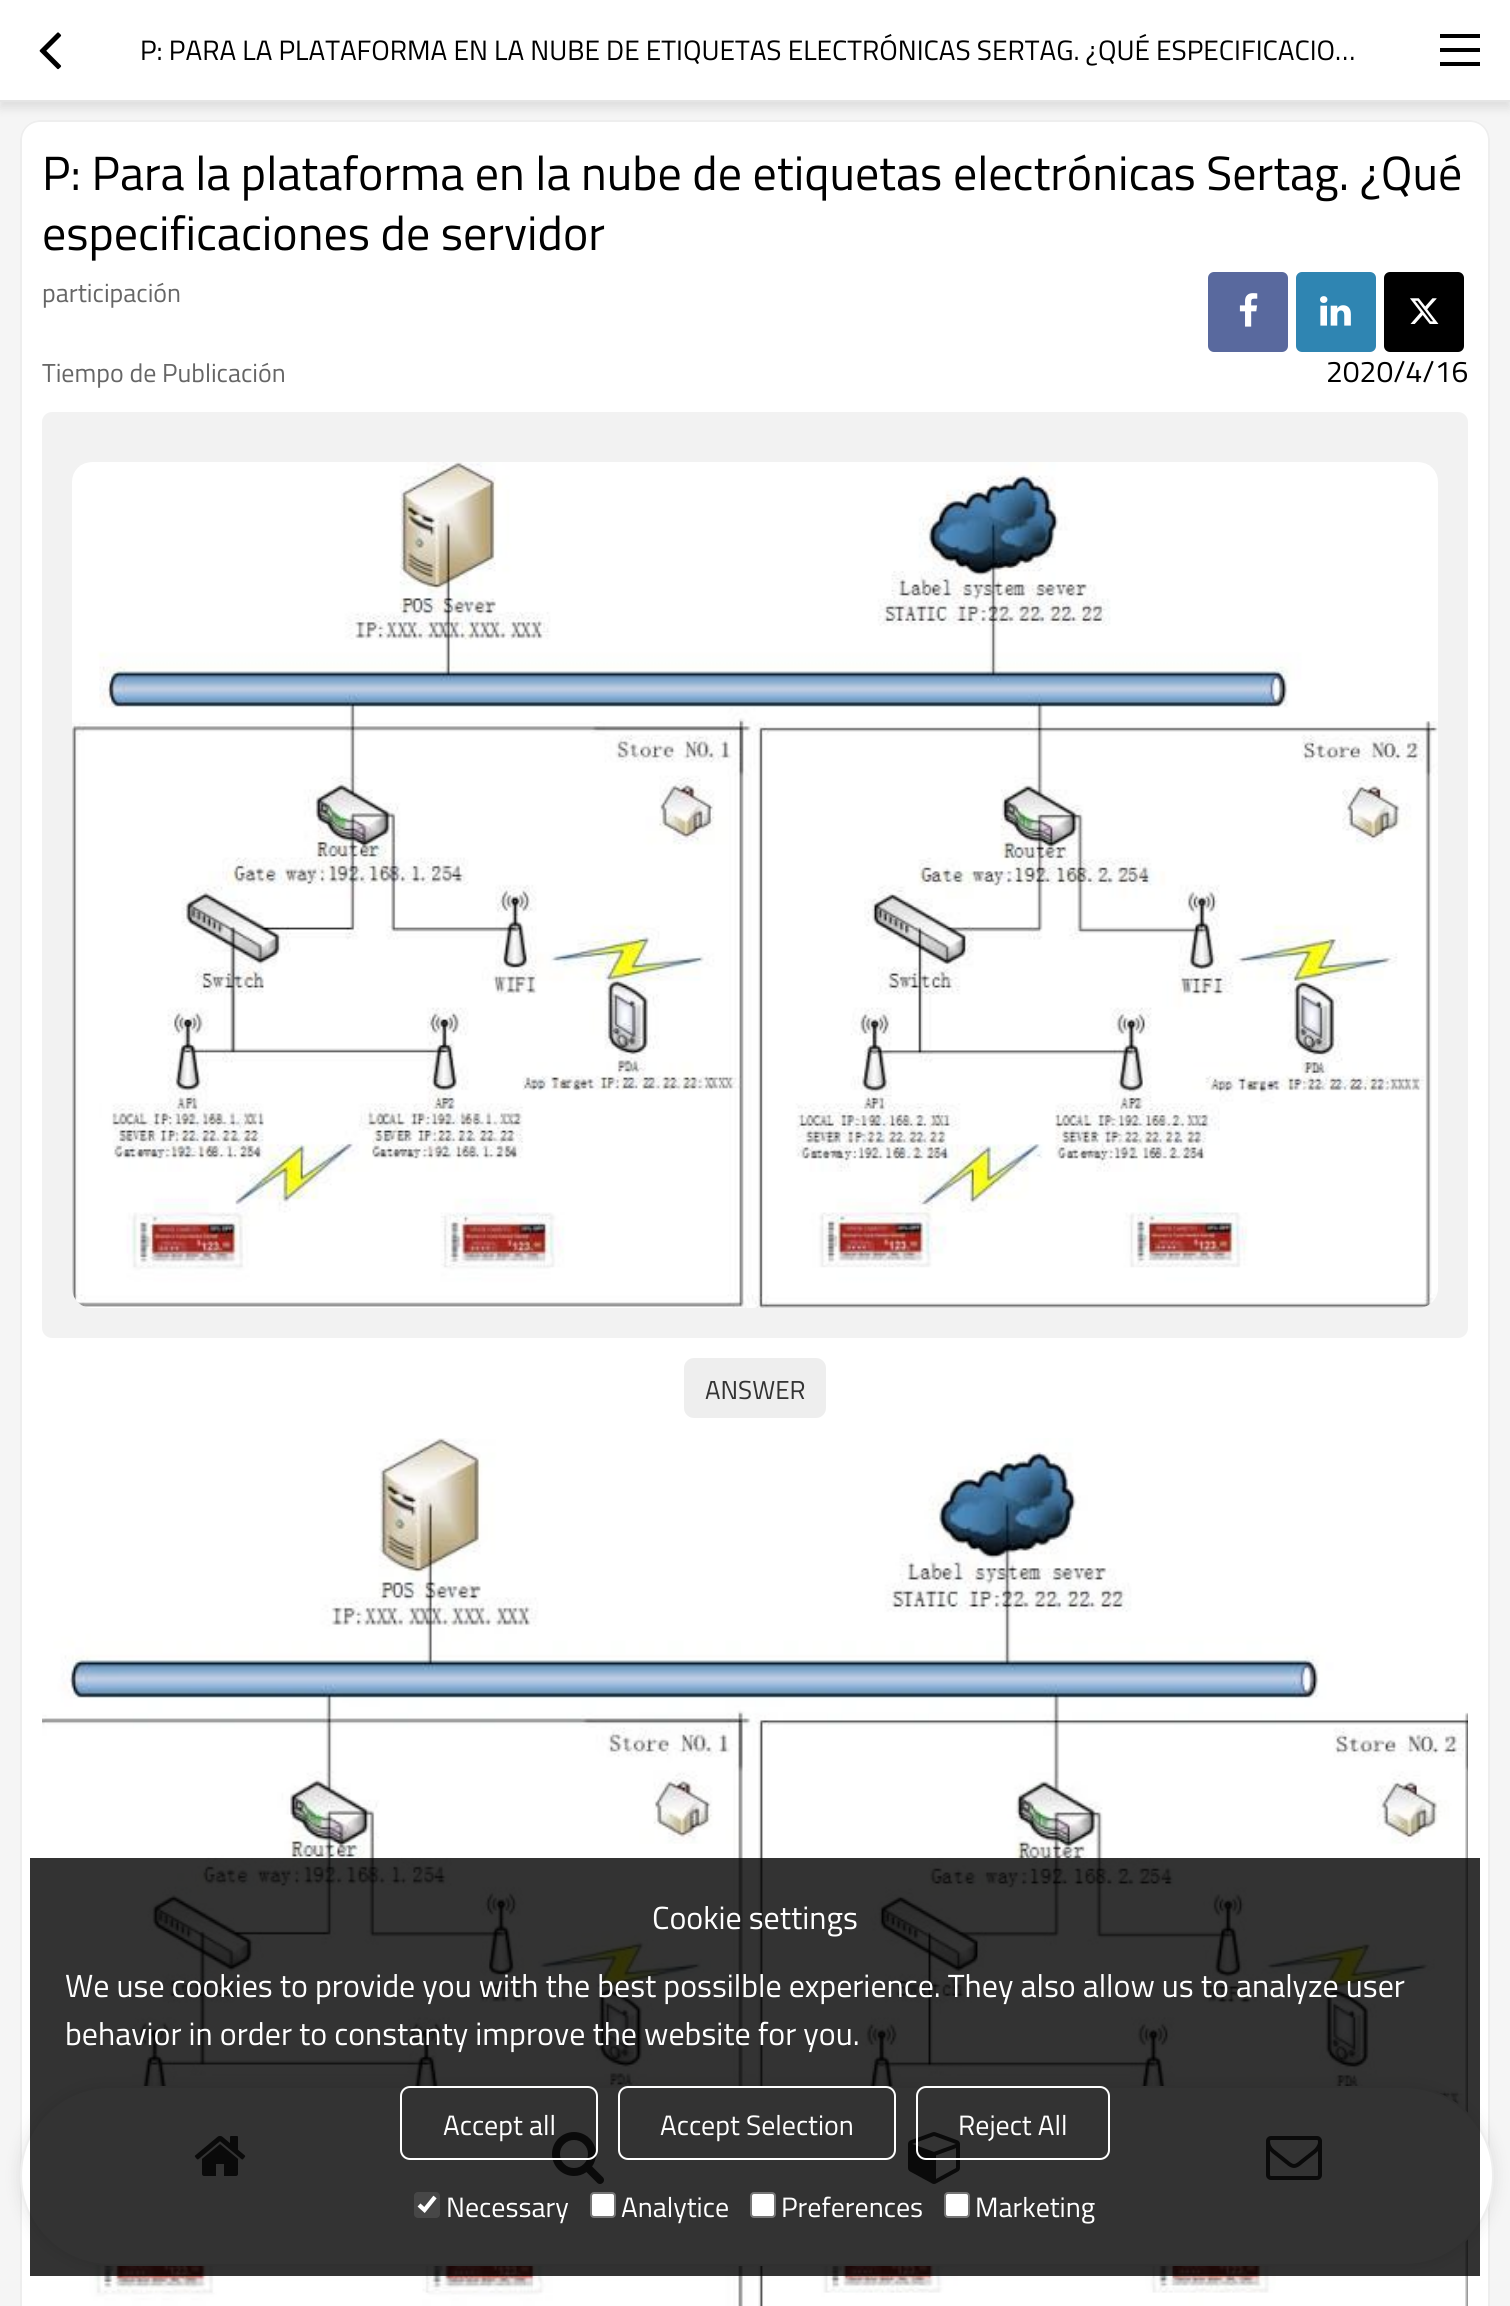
#include <cairo.h>
#include <math.h>
#include <stddef.h>


static void set_color(cairo_t *cr, unsigned color) {
    cairo_set_source_rgb(cr, (color >> 16) / 255.0, (color >> 8 & 255) / 255.0, (color & 255) / 255.0);
}

static void draw_text(cairo_t *cr, double x, double y, const char *s, const char *family, double size, int italic, int bold, unsigned color) {
    cairo_select_font_face(cr, family, italic ? CAIRO_FONT_SLANT_ITALIC : CAIRO_FONT_SLANT_NORMAL,
        bold ? CAIRO_FONT_WEIGHT_BOLD : CAIRO_FONT_WEIGHT_NORMAL);
    cairo_set_font_size(cr, size);
    set_color(cr, color);
    cairo_move_to(cr, x, y);
    cairo_show_text(cr, s);
}

static void fill_rect(cairo_t *cr, double x, double y, double w, double h, unsigned color) {
    set_color(cr, color);
    cairo_rectangle(cr, x, y, w, h);
    cairo_fill(cr);
}

static void rounded_rect(cairo_t *cr, double x, double y, double w, double h, double r) {
    cairo_new_sub_path(cr);
    cairo_arc(cr, x + w - r, y + h - r, r, 0, M_PI / 2);
    cairo_arc(cr, x + r, y + h - r, r, M_PI / 2, M_PI);
    cairo_arc(cr, x + r, y + r, r, M_PI, 1.5 * M_PI);
    cairo_arc(cr, x + w - r, y + r, r, 1.5 * M_PI, 2 * M_PI);
    cairo_close_path(cr);
}

static void draw_shadow(cairo_t *cr, double x, double y, double w, double h, double r, double blur, double alpha) {
    cairo_push_group_with_content(cr, CAIRO_CONTENT_ALPHA);
    cairo_set_operator(cr, CAIRO_OPERATOR_SOURCE);
    for (int i = 15; i >= -15 && fmin(w, h) + blur * i / 3 > 0; i -= 2) {
        double e = blur * i / 6;
        cairo_set_source_rgba(cr, 0, 0, 0, alpha * erfc((i - 1) / 8.5) / 2);
        rounded_rect(cr, x - e, y - e, w + 2 * e, h + 2 * e, fmax(0, fmin(r + e + blur * .6, fmin(w, h) / 2 + e)));
        cairo_fill(cr);
    }
    cairo_pattern_t *soft = cairo_pop_group(cr);
    cairo_mask(cr, soft);
    cairo_pattern_destroy(soft);
}

static void draw_image(cairo_t *cr, const char *path, double x, double y, double w, double h) {
    cairo_surface_t *image = cairo_image_surface_create_from_png(path);
    cairo_save(cr);
    cairo_set_source_surface(cr, image, x, y);
    cairo_rectangle(cr, x, y, w, h);
    cairo_fill(cr);
    cairo_restore(cr);
    cairo_surface_destroy(image);
}

int main(void) {
    cairo_surface_t *surface = cairo_image_surface_create(CAIRO_FORMAT_RGB24, 1510, 2306);
    cairo_t *cr = cairo_create(surface);
    cairo_font_options_t *options = cairo_font_options_create();
    cairo_font_options_set_hint_metrics(options, CAIRO_HINT_METRICS_OFF);
    cairo_font_options_set_hint_style(options, CAIRO_HINT_STYLE_NONE);
    cairo_set_font_options(cr, options);
    cairo_set_miter_limit(cr, 4);
    set_color(cr, 0xF5F5F5);
    cairo_paint(cr);
    set_color(cr, 0xFFFFFF);
    rounded_rect(cr, 20, 120, 1470, 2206, 20);
    cairo_fill(cr);
    set_color(cr, 0xEEEEEE);
    cairo_set_fill_rule(cr, CAIRO_FILL_RULE_EVEN_ODD);
    cairo_new_path(cr);
    cairo_move_to(cr, 40, 120);
    cairo_line_to(cr, 1470, 120);
    cairo_curve_to(cr, 1481, 120, 1490, 129, 1490, 140);
    cairo_line_to(cr, 1490, 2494);
    cairo_curve_to(cr, 1490, 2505, 1481, 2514, 1470, 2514);
    cairo_line_to(cr, 40, 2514);
    cairo_curve_to(cr, 29, 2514, 20, 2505, 20, 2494);
    cairo_line_to(cr, 20, 140);
    cairo_curve_to(cr, 20, 129, 29, 120, 40, 120);
    cairo_close_path(cr);
    cairo_move_to(cr, 40, 122);
    cairo_line_to(cr, 1470, 122);
    cairo_curve_to(cr, 1480, 122, 1488, 130, 1488, 140);
    cairo_line_to(cr, 1488, 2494);
    cairo_curve_to(cr, 1488, 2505, 1480, 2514, 1470, 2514);
    cairo_line_to(cr, 40, 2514);
    cairo_curve_to(cr, 30, 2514, 22, 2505, 22, 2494);
    cairo_line_to(cr, 22, 140);
    cairo_curve_to(cr, 22, 130, 30, 122, 40, 122);
    cairo_close_path(cr);
    cairo_fill(cr);
    set_color(cr, 0x000000);
    draw_shadow(cr, 0, 6, 1510, 102, 0, 5, 0.1);
    fill_rect(cr, 0, 0, 1510, 100, 0xFFFFFF);
    fill_rect(cr, 0, 100, 1510, 2, 0xE5E5E5);
    draw_image(cr, "assets/img1.png", 39, 32, 23, 38);
    draw_text(cr, 140, 60, "P: PARA LA PLATAFORMA EN LA NUBE DE ETIQUETAS ELECTRÓNICAS SERTAG. ¿QUÉ ESPECIFICACIO…", "Titillium Web", 28, 0, 0, 0x000000);
    fill_rect(cr, 1440, 34, 40, 4, 0x000000);
    fill_rect(cr, 1440, 48, 40, 4, 0x000000);
    fill_rect(cr, 1440, 62, 40, 4, 0x000000);
    draw_text(cr, 42, 190, "P: Para la plataforma en la nube de etiquetas electrónicas Sertag. ¿Qué", "Titillium Web", 48, 0, 0, 0x000000);
    draw_text(cr, 42, 250, "especificaciones de servidor", "Titillium Web", 48, 0, 0, 0x000000);
    draw_text(cr, 42, 302, "participación", "Titillium Web", 26, 0, 0, 0x666666);
    set_color(cr, 0x59699E);
    rounded_rect(cr, 1208, 272, 80, 80, 6);
    cairo_fill(cr);
    draw_image(cr, "assets/img2.png", 1239, 293, 19, 34);
    set_color(cr, 0x2F85B2);
    rounded_rect(cr, 1296, 272, 80, 80, 6);
    cairo_fill(cr);
    draw_image(cr, "assets/img3.png", 1320, 296, 31, 30);
    set_color(cr, 0x000000);
    rounded_rect(cr, 1384, 272, 80, 80, 6);
    cairo_fill(cr);
    draw_image(cr, "assets/img4.png", 1410, 298, 29, 26);
    draw_text(cr, 42, 382, "Tiempo de Publicación", "Titillium Web", 26, 0, 0, 0x666666);
    draw_text(cr, 1326, 382, "2020/4/16", "Titillium Web", 30, 0, 0, 0x000000);
    set_color(cr, 0xF2F2F2);
    rounded_rect(cr, 42, 412, 1426, 926, 10);
    cairo_fill(cr);
    draw_image(cr, "assets/img5.png", 72, 462, 1366, 846);
    set_color(cr, 0xEEEEEE);
    rounded_rect(cr, 684, 1358, 142, 60, 10);
    cairo_fill(cr);
    draw_text(cr, 705, 1399, "ANSWER", "Titillium Web", 26, 0, 0, 0x333333);
    draw_image(cr, "assets/img6.png", 42, 1438, 1426, 868);
    set_color(cr, 0x000000);
    draw_shadow(cr, 20, 2086, 1474, 180, 90, 8, 0.1);
    set_color(cr, 0xFFFFFF);
    rounded_rect(cr, 21, 2087, 1472, 178, 89);
    cairo_fill_preserve(cr);
    set_color(cr, 0xEEEEEE);
    cairo_stroke(cr);
    draw_image(cr, "assets/img7.png", 194, 2135, 52, 41);
    draw_image(cr, "assets/img8.png", 552, 2132, 52, 52);
    draw_image(cr, "assets/img9.png", 908, 2132, 52, 52);
    draw_image(cr, "assets/img10.png", 1266, 2136, 56, 44);
    cairo_set_source_rgba(cr, 0, 0, 0, 0.8);
    cairo_rectangle(cr, 30, 1858, 1450, 418);
    cairo_fill(cr);
    draw_text(cr, 652, 1929, "Cookie settings", "Titillium Web", 32, 0, 0, 0xFFFFFF);
    draw_text(cr, 65, 1997, "We use cookies to provide you with the best possilble experience. They also allow us to analyze user", "Titillium Web", 32, 0, 0, 0xFFFFFF);
    draw_text(cr, 65, 2045, "behavior in order to constanty improve the website for you.", "Titillium Web", 32, 0, 0, 0xFFFFFF);
    rounded_rect(cr, 401, 2087, 196, 72, 9);
    cairo_stroke(cr);
    draw_text(cr, 443, 2135, "Accept all", "Titillium Web", 28, 0, 0, 0xFFFFFF);
    rounded_rect(cr, 619, 2087, 276, 72, 9);
    cairo_stroke(cr);
    draw_text(cr, 660, 2135, "Accept Selection", "Titillium Web", 28, 0, 0, 0xFFFFFF);
    rounded_rect(cr, 917, 2087, 192, 72, 9);
    cairo_stroke(cr);
    draw_text(cr, 958, 2135, "Reject All", "Titillium Web", 28, 0, 0, 0xFFFFFF);
    set_color(cr, 0x474747);
    rounded_rect(cr, 414, 2192, 26, 26, 4);
    cairo_fill(cr);
    cairo_new_path(cr);
    cairo_move_to(cr, 419, 2205);
    cairo_line_to(cr, 424.5, 2210);
    cairo_line_to(cr, 435, 2197);
    set_color(cr, 0xFFFFFF);
    cairo_set_line_width(cr, 4.2);
    cairo_stroke(cr);
    draw_text(cr, 446, 2217, "Necessary", "Titillium Web", 28, 0, 0, 0xFFFFFF);
    rounded_rect(cr, 591, 2193, 24, 24, 3);
    cairo_fill_preserve(cr);
    set_color(cr, 0x767676);
    cairo_set_line_width(cr, 2);
    cairo_stroke(cr);
    draw_text(cr, 621, 2217, "Analytice", "Titillium Web", 28, 0, 0, 0xFFFFFF);
    rounded_rect(cr, 751, 2193, 24, 24, 3);
    cairo_fill_preserve(cr);
    set_color(cr, 0x767676);
    cairo_stroke(cr);
    draw_text(cr, 781, 2217, "Preferences", "Titillium Web", 28, 0, 0, 0xFFFFFF);
    rounded_rect(cr, 945, 2193, 24, 24, 3);
    cairo_fill_preserve(cr);
    set_color(cr, 0x767676);
    cairo_stroke(cr);
    draw_text(cr, 975, 2217, "Marketing", "Titillium Web", 28, 0, 0, 0xFFFFFF);
    cairo_surface_write_to_png(surface, "output.png");
    cairo_font_options_destroy(options);
    cairo_destroy(cr);
    cairo_surface_destroy(surface);
    return 0;
}
